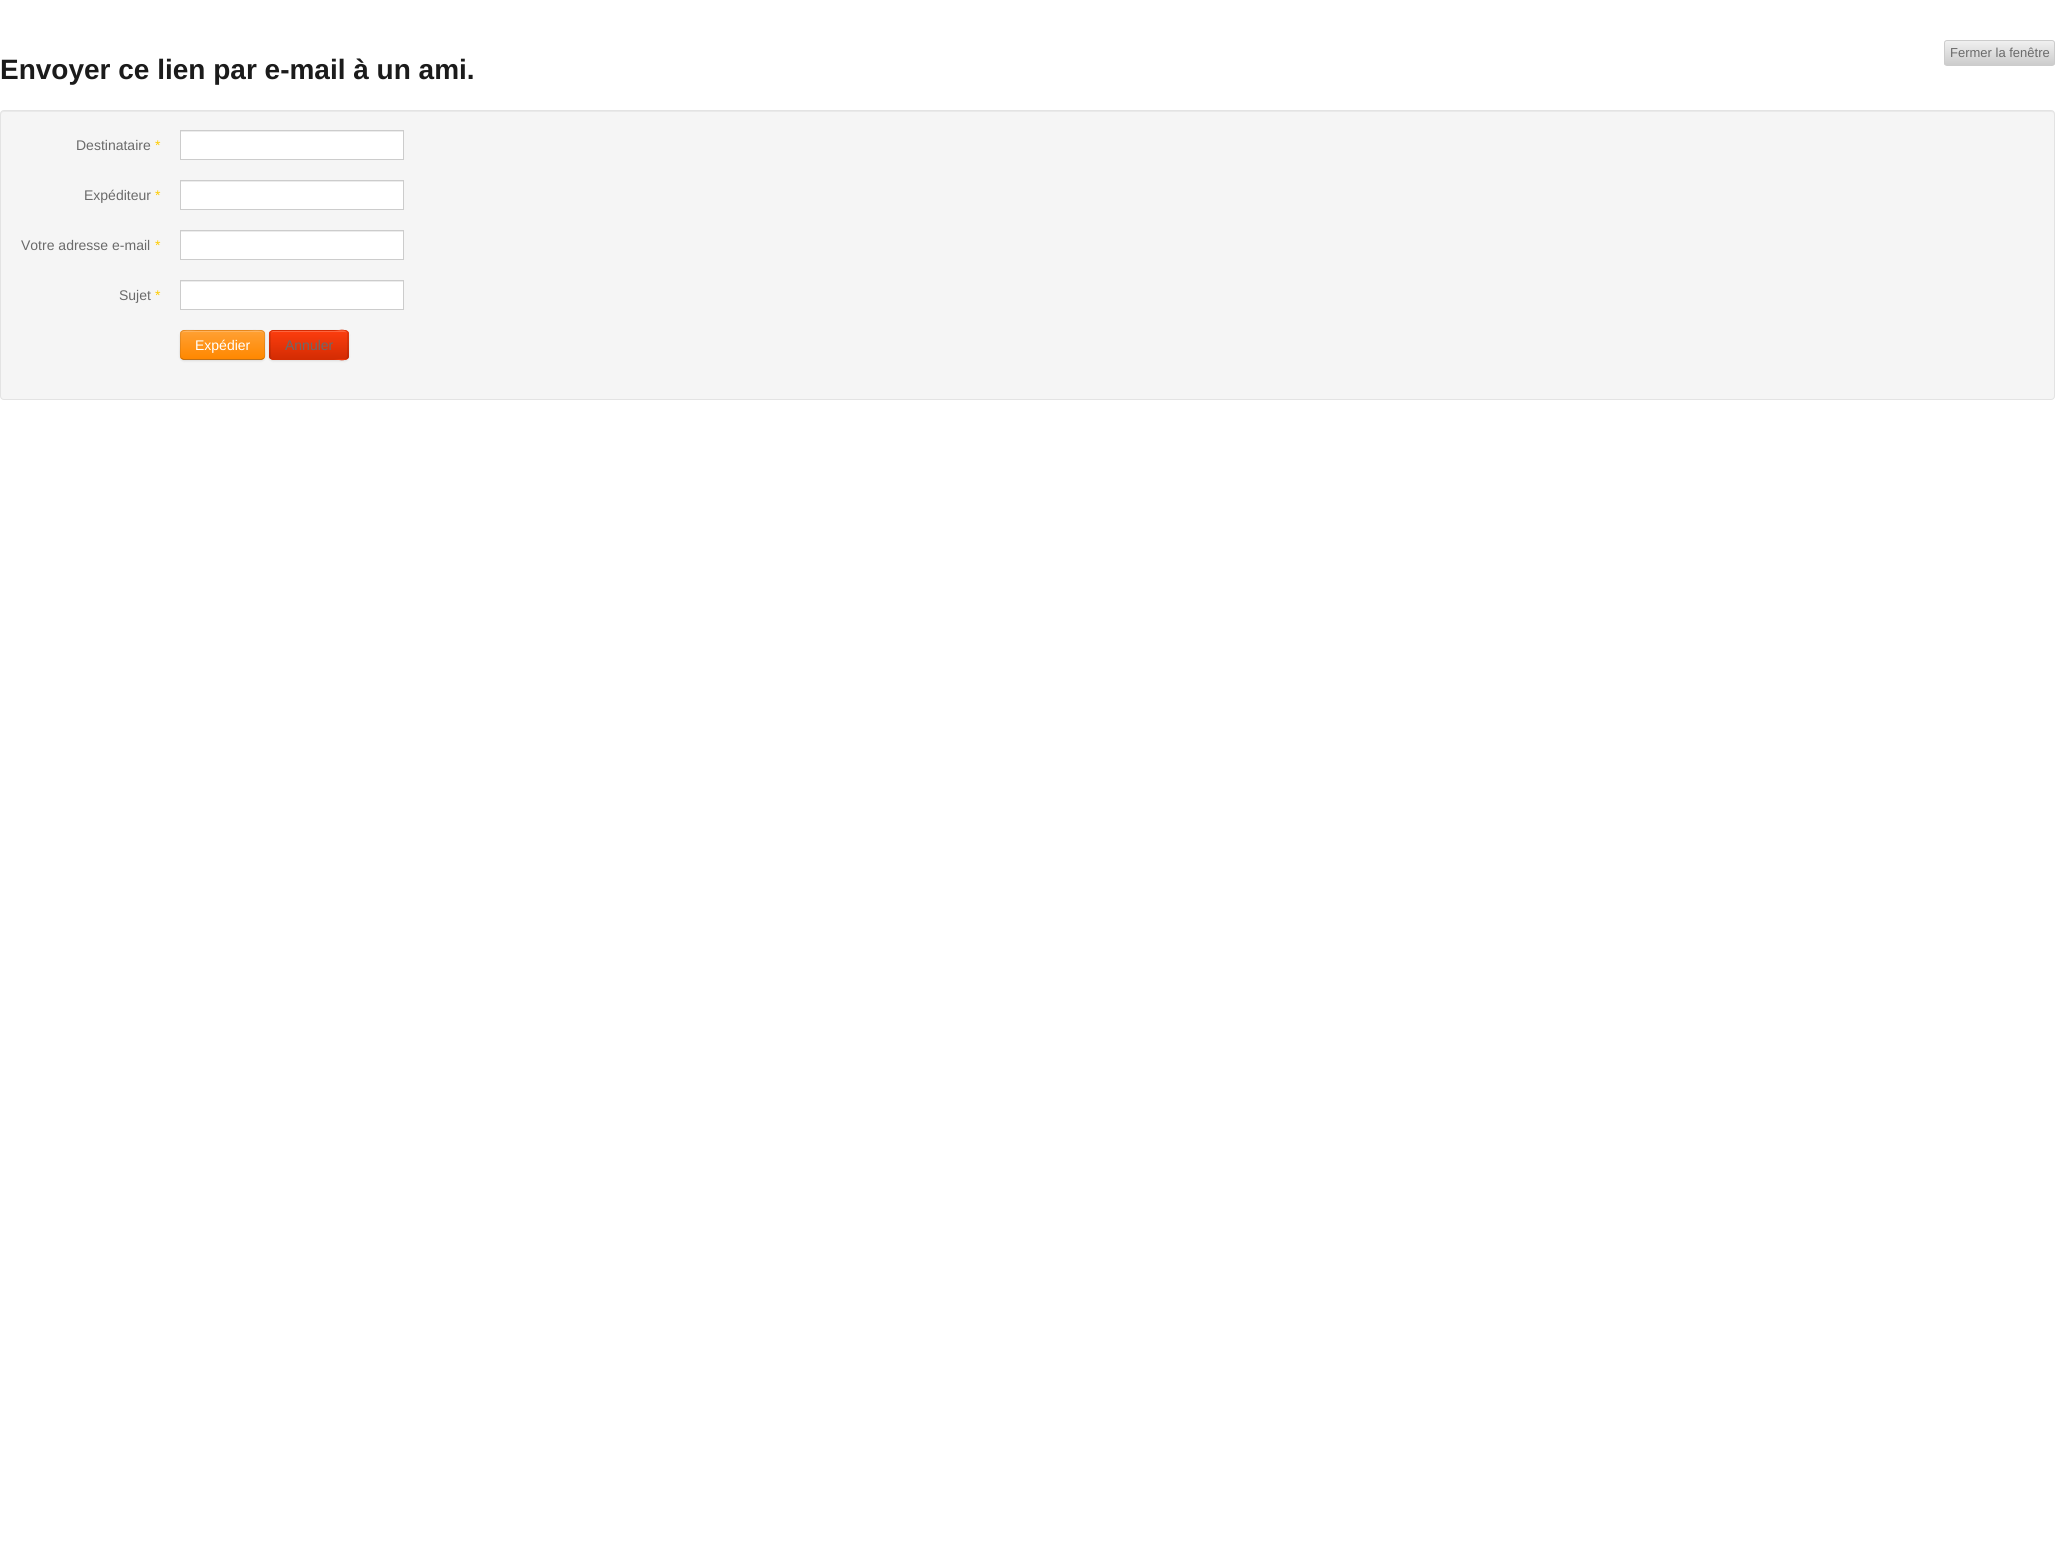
#include <cairo.h>
#include <math.h>
#include <stddef.h>


static void set_color(cairo_t *cr, unsigned color) {
    cairo_set_source_rgb(cr, (color >> 16) / 255.0, (color >> 8 & 255) / 255.0, (color & 255) / 255.0);
}

static void draw_text(cairo_t *cr, double x, double y, const char *s, const char *family, double size, int italic, int bold, unsigned color) {
    cairo_select_font_face(cr, family, italic ? CAIRO_FONT_SLANT_ITALIC : CAIRO_FONT_SLANT_NORMAL,
        bold ? CAIRO_FONT_WEIGHT_BOLD : CAIRO_FONT_WEIGHT_NORMAL);
    cairo_set_font_size(cr, size);
    set_color(cr, color);
    cairo_move_to(cr, x, y);
    cairo_show_text(cr, s);
}

static void fill_rect(cairo_t *cr, double x, double y, double w, double h, unsigned color) {
    set_color(cr, color);
    cairo_rectangle(cr, x, y, w, h);
    cairo_fill(cr);
}

static void rounded_rect(cairo_t *cr, double x, double y, double w, double h, double r) {
    cairo_new_sub_path(cr);
    cairo_arc(cr, x + w - r, y + h - r, r, 0, M_PI / 2);
    cairo_arc(cr, x + r, y + h - r, r, M_PI / 2, M_PI);
    cairo_arc(cr, x + r, y + r, r, M_PI, 1.5 * M_PI);
    cairo_arc(cr, x + w - r, y + r, r, 1.5 * M_PI, 2 * M_PI);
    cairo_close_path(cr);
}

static void draw_shadow(cairo_t *cr, double x, double y, double w, double h, double r, double blur, double alpha) {
    cairo_push_group_with_content(cr, CAIRO_CONTENT_ALPHA);
    cairo_set_operator(cr, CAIRO_OPERATOR_SOURCE);
    for (int i = 15; i >= -15 && fmin(w, h) + blur * i / 3 > 0; i -= 2) {
        double e = blur * i / 6;
        cairo_set_source_rgba(cr, 0, 0, 0, alpha * erfc((i - 1) / 8.5) / 2);
        rounded_rect(cr, x - e, y - e, w + 2 * e, h + 2 * e, fmax(0, fmin(r + e + blur * .6, fmin(w, h) / 2 + e)));
        cairo_fill(cr);
    }
    cairo_pattern_t *soft = cairo_pop_group(cr);
    cairo_mask(cr, soft);
    cairo_pattern_destroy(soft);
}

int main(void) {
    cairo_surface_t *surface = cairo_image_surface_create(CAIRO_FORMAT_RGB24, 2055, 1551);
    cairo_t *cr = cairo_create(surface);
    cairo_font_options_t *options = cairo_font_options_create();
    cairo_font_options_set_hint_metrics(options, CAIRO_HINT_METRICS_OFF);
    cairo_font_options_set_hint_style(options, CAIRO_HINT_STYLE_NONE);
    cairo_set_font_options(cr, options);
    cairo_set_miter_limit(cr, 4);
    cairo_pattern_t *gradient;
    set_color(cr, 0xFFFFFF);
    cairo_paint(cr);
    cairo_save(cr);
    rounded_rect(cr, 1944, 40, 111, 26, 3);
    cairo_clip(cr);
    gradient = cairo_pattern_create_linear(2000, 65, 2000, 41);
    cairo_pattern_add_color_stop_rgba(gradient, 0, 0.8, 0.8, 0.8, 1);
    cairo_pattern_add_color_stop_rgba(gradient, 1, 0.941, 0.941, 0.941, 1);
    cairo_set_source(cr, gradient);
    cairo_pattern_destroy(gradient);
    cairo_rectangle(cr, 1944, 41, 111, 24);
    cairo_fill(cr);
    cairo_restore(cr);
    rounded_rect(cr, 1944.5, 40.5, 110, 25, 2.5);
    set_color(cr, 0xCCCCCC);
    cairo_set_line_width(cr, 1);
    cairo_stroke(cr);
    draw_text(cr, 1950, 57, "Fermer la fenêtre", "Liberation Sans", 13, 0, 0, 0x6A6A6A);
    draw_text(cr, 0, 79, "Envoyer ce lien par e-mail à un ami.", "Liberation Sans", 28, 0, 1, 0x1B1B1B);
    set_color(cr, 0xF5F5F5);
    rounded_rect(cr, 0, 110, 2055, 290, 4);
    cairo_fill(cr);
    set_color(cr, 0xE9E9E9);
    cairo_new_path(cr);
    cairo_move_to(cr, 4, 112);
    cairo_line_to(cr, 2051, 112);
    cairo_curve_to(cr, 2053, 112, 2054, 113, 2054, 115);
    cairo_line_to(cr, 2054, 114);
    cairo_curve_to(cr, 2054, 112, 2053, 111, 2051, 111);
    cairo_line_to(cr, 4, 111);
    cairo_curve_to(cr, 2, 111, 1, 112, 1, 114);
    cairo_line_to(cr, 1, 115);
    cairo_curve_to(cr, 1, 113, 2, 112, 4, 112);
    cairo_close_path(cr);
    cairo_fill(cr);
    rounded_rect(cr, 0.5, 110.5, 2054, 289, 3.5);
    set_color(cr, 0xE3E3E3);
    cairo_stroke(cr);
    draw_text(cr, 76, 150, "Destinataire", "Liberation Sans", 14, 0, 0, 0x6A6A6A);
    draw_text(cr, 155, 150, "*", "Liberation Sans", 14, 0, 0, 0xFFCC00);
    fill_rect(cr, 181, 132, 222, 27, 0xFFFFFF);
    fill_rect(cr, 181, 131, 222, 1, 0xECECEC);
    cairo_rectangle(cr, 180.5, 130.5, 223, 29);
    set_color(cr, 0xCCCCCC);
    cairo_stroke(cr);
    draw_text(cr, 84, 200, "Expéditeur", "Liberation Sans", 14, 0, 0, 0x6A6A6A);
    draw_text(cr, 155, 200, "*", "Liberation Sans", 14, 0, 0, 0xFFCC00);
    fill_rect(cr, 181, 182, 222, 27, 0xFFFFFF);
    fill_rect(cr, 181, 181, 222, 1, 0xECECEC);
    cairo_rectangle(cr, 180.5, 180.5, 223, 29);
    set_color(cr, 0xCCCCCC);
    cairo_stroke(cr);
    draw_text(cr, 21, 250, "Votre adresse e-mail", "Liberation Sans", 14, 0, 0, 0x6A6A6A);
    draw_text(cr, 155, 250, "*", "Liberation Sans", 14, 0, 0, 0xFFCC00);
    fill_rect(cr, 181, 232, 222, 27, 0xFFFFFF);
    fill_rect(cr, 181, 231, 222, 1, 0xECECEC);
    cairo_rectangle(cr, 180.5, 230.5, 223, 29);
    set_color(cr, 0xCCCCCC);
    cairo_stroke(cr);
    draw_text(cr, 119, 300, "Sujet", "Liberation Sans", 14, 0, 0, 0x6A6A6A);
    draw_text(cr, 155, 300, "*", "Liberation Sans", 14, 0, 0, 0xFFCC00);
    fill_rect(cr, 181, 282, 222, 27, 0xFFFFFF);
    fill_rect(cr, 181, 281, 222, 1, 0xECECEC);
    cairo_rectangle(cr, 180.5, 280.5, 223, 29);
    set_color(cr, 0xCCCCCC);
    cairo_stroke(cr);
    set_color(cr, 0x000000);
    draw_shadow(cr, 180, 331, 85, 30, 4, 1, 0.1);
    set_color(cr, 0xFF961F);
    rounded_rect(cr, 180, 330, 85, 30, 4);
    cairo_fill(cr);
    cairo_save(cr);
    rounded_rect(cr, 180, 330, 85, 30, 4);
    cairo_clip(cr);
    gradient = cairo_pattern_create_linear(223, 331, 223, 359);
    cairo_pattern_add_color_stop_rgba(gradient, 0, 1, 0.627, 0.2, 1);
    cairo_pattern_add_color_stop_rgba(gradient, 1, 1, 0.533, 0, 1);
    cairo_set_source(cr, gradient);
    cairo_pattern_destroy(gradient);
    cairo_rectangle(cr, 180, 331, 85, 28);
    cairo_fill(cr);
    cairo_restore(cr);
    cairo_set_source_rgba(cr, 1, 1, 1, 0.2);
    cairo_new_path(cr);
    cairo_move_to(cr, 184, 332);
    cairo_line_to(cr, 261, 332);
    cairo_curve_to(cr, 263, 332, 264, 333, 264, 335);
    cairo_curve_to(cr, 264, 328, 252, 331, 248, 331);
    cairo_line_to(cr, 197, 331);
    cairo_curve_to(cr, 193, 331, 181, 328, 181, 335);
    cairo_curve_to(cr, 181, 333, 182, 332, 184, 332);
    cairo_close_path(cr);
    cairo_fill(cr);
    cairo_new_path(cr);
    cairo_move_to(cr, 263.5, 358.5);
    cairo_line_to(cr, 261.5, 359.5);
    cairo_line_to(cr, 183.5, 359.5);
    cairo_line_to(cr, 181.5, 358.5);
    cairo_set_source_rgba(cr, 0, 0, 0, 0.25);
    cairo_stroke(cr);
    cairo_new_path(cr);
    cairo_move_to(cr, 181.5, 358.5);
    cairo_curve_to(cr, 179.5, 356.5, 180.5, 348, 180.5, 345);
    cairo_curve_to(cr, 180.5, 328, 178.5, 330.5, 197, 330.5);
    cairo_line_to(cr, 248, 330.5);
    cairo_curve_to(cr, 268.5, 330.5, 264.5, 328.5, 264.5, 348.5);
    cairo_curve_to(cr, 264.5, 351.5, 266, 356, 263.5, 358.5);
    cairo_set_source_rgba(cr, 0, 0, 0, 0.1);
    cairo_stroke(cr);
    draw_text(cr, 195, 350, "Expédier", "Liberation Sans", 14, 0, 0, 0xFFFFFF);
    set_color(cr, 0x000000);
    draw_shadow(cr, 269, 331, 80, 30, 4, 1, 0.1);
    set_color(cr, 0xEC360A);
    rounded_rect(cr, 269, 330, 80, 30, 4);
    cairo_fill(cr);
    cairo_save(cr);
    rounded_rect(cr, 269, 330, 80, 30, 4);
    cairo_clip(cr);
    gradient = cairo_pattern_create_linear(309, 331, 309, 359);
    cairo_pattern_add_color_stop_rgba(gradient, 0, 0.988, 0.239, 0.055, 1);
    cairo_pattern_add_color_stop_rgba(gradient, 1, 0.831, 0.173, 0.012, 1);
    cairo_set_source(cr, gradient);
    cairo_pattern_destroy(gradient);
    cairo_rectangle(cr, 269, 331, 80, 28);
    cairo_fill(cr);
    cairo_restore(cr);
    cairo_set_source_rgba(cr, 1, 1, 1, 0.2);
    cairo_new_path(cr);
    cairo_move_to(cr, 273, 332);
    cairo_line_to(cr, 345, 332);
    cairo_curve_to(cr, 346, 332, 347, 333, 347, 335);
    cairo_curve_to(cr, 347, 328, 339, 331, 333, 331);
    cairo_line_to(cr, 285, 331);
    cairo_curve_to(cr, 279, 331, 271, 328, 271, 335);
    cairo_curve_to(cr, 271, 333, 272, 332, 273, 332);
    cairo_close_path(cr);
    cairo_fill(cr);
    set_color(cr, 0xD42C03);
    cairo_new_path(cr);
    cairo_move_to(cr, 273, 330);
    cairo_line_to(cr, 271, 331);
    cairo_line_to(cr, 272, 331);
    cairo_line_to(cr, 333, 331);
    cairo_curve_to(cr, 337, 331, 343, 328, 346, 331);
    cairo_line_to(cr, 347, 331);
    cairo_line_to(cr, 345, 330);
    cairo_close_path(cr);
    cairo_fill(cr);
    cairo_set_source_rgba(cr, 0, 0, 0, 0.1);
    cairo_new_path(cr);
    cairo_move_to(cr, 349, 356);
    cairo_line_to(cr, 349, 334);
    cairo_curve_to(cr, 349, 333, 348.5, 331.5, 347.5, 331);
    cairo_line_to(cr, 346, 331.5);
    cairo_curve_to(cr, 346.5, 332, 347, 333, 347, 334);
    cairo_line_to(cr, 347, 356);
    cairo_curve_to(cr, 347, 357, 346.5, 358, 346, 358.5);
    cairo_line_to(cr, 347.5, 359);
    cairo_curve_to(cr, 348.5, 358.5, 349, 357, 349, 356);
    cairo_close_path(cr);
    cairo_fill(cr);
    set_color(cr, 0xD42C03);
    cairo_new_path(cr);
    cairo_move_to(cr, 273, 360);
    cairo_line_to(cr, 345, 360);
    cairo_line_to(cr, 347, 359);
    cairo_line_to(cr, 346, 359);
    cairo_curve_to(cr, 343, 362, 337, 359, 333, 359);
    cairo_line_to(cr, 272, 359);
    cairo_line_to(cr, 271, 359);
    cairo_close_path(cr);
    cairo_fill(cr);
    cairo_set_source_rgba(cr, 0, 0, 0, 0.1);
    cairo_new_path(cr);
    cairo_move_to(cr, 269, 334);
    cairo_line_to(cr, 269, 356);
    cairo_curve_to(cr, 269, 357, 269.5, 358.5, 270.5, 359);
    cairo_line_to(cr, 272, 358.5);
    cairo_curve_to(cr, 271.5, 358, 271, 357, 271, 356);
    cairo_line_to(cr, 271, 334);
    cairo_curve_to(cr, 271, 333, 271.5, 332, 272, 331.5);
    cairo_line_to(cr, 270.5, 331);
    cairo_curve_to(cr, 269.5, 331.5, 269, 333, 269, 334);
    cairo_close_path(cr);
    cairo_fill(cr);
    draw_text(cr, 285, 350, "Annuler", "Liberation Sans", 14, 0, 0, 0x6A6A6A);
    cairo_surface_write_to_png(surface, "output.png");
    cairo_font_options_destroy(options);
    cairo_destroy(cr);
    cairo_surface_destroy(surface);
    return 0;
}
